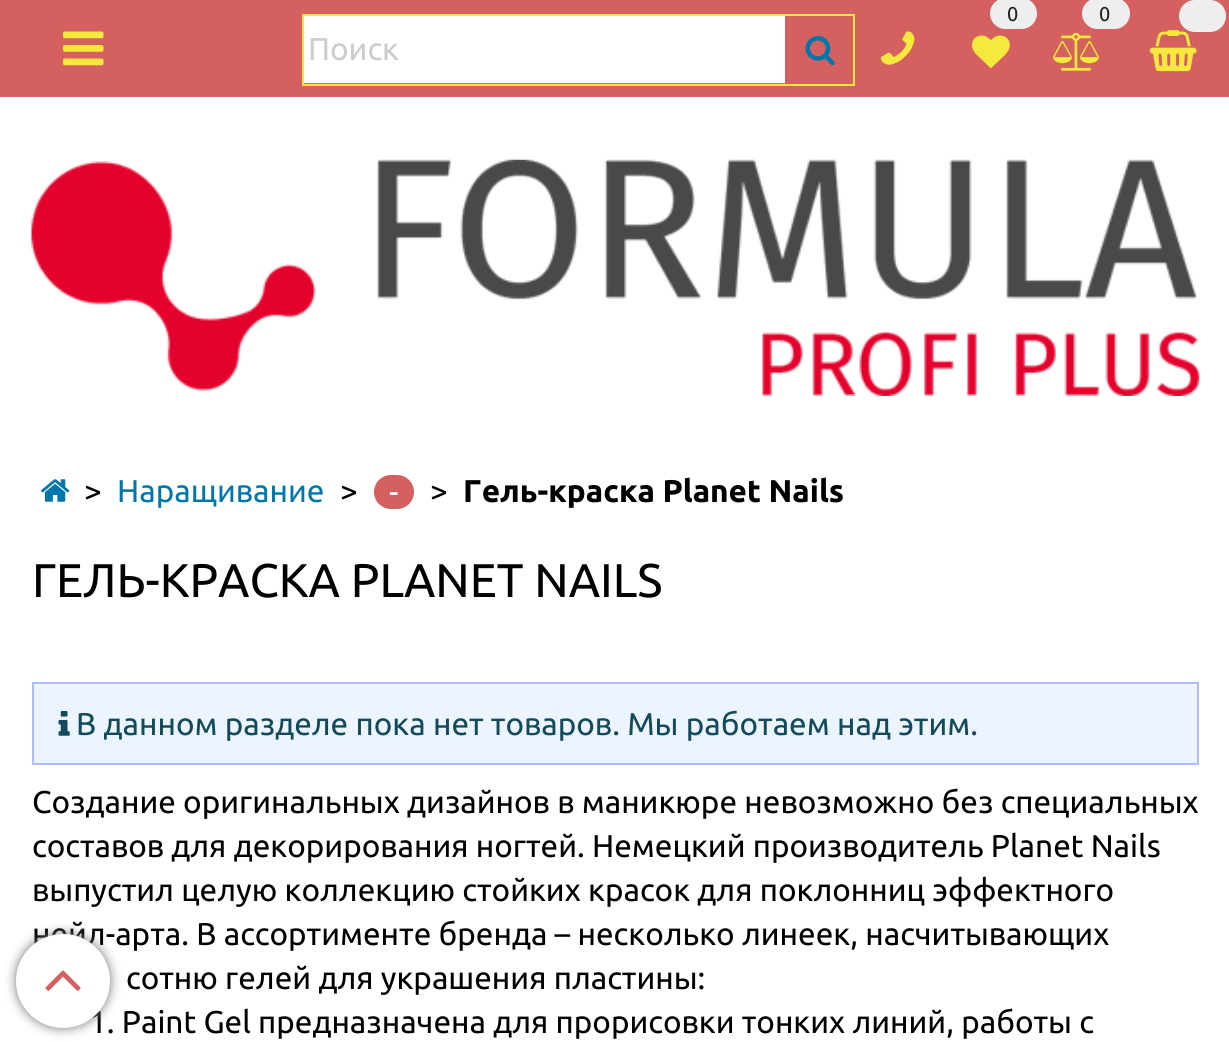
#include <cairo.h>
#include <math.h>
#include <stddef.h>


static void set_color(cairo_t *cr, unsigned color) {
    cairo_set_source_rgb(cr, (color >> 16) / 255.0, (color >> 8 & 255) / 255.0, (color & 255) / 255.0);
}

static void draw_text(cairo_t *cr, double x, double y, const char *s, const char *family, double size, int italic, int bold, unsigned color) {
    cairo_select_font_face(cr, family, italic ? CAIRO_FONT_SLANT_ITALIC : CAIRO_FONT_SLANT_NORMAL,
        bold ? CAIRO_FONT_WEIGHT_BOLD : CAIRO_FONT_WEIGHT_NORMAL);
    cairo_set_font_size(cr, size);
    set_color(cr, color);
    cairo_move_to(cr, x, y);
    cairo_show_text(cr, s);
}

static void fill_rect(cairo_t *cr, double x, double y, double w, double h, unsigned color) {
    set_color(cr, color);
    cairo_rectangle(cr, x, y, w, h);
    cairo_fill(cr);
}

static void rounded_rect(cairo_t *cr, double x, double y, double w, double h, double r) {
    cairo_new_sub_path(cr);
    cairo_arc(cr, x + w - r, y + h - r, r, 0, M_PI / 2);
    cairo_arc(cr, x + r, y + h - r, r, M_PI / 2, M_PI);
    cairo_arc(cr, x + r, y + r, r, M_PI, 1.5 * M_PI);
    cairo_arc(cr, x + w - r, y + r, r, 1.5 * M_PI, 2 * M_PI);
    cairo_close_path(cr);
}

static void draw_shadow(cairo_t *cr, double x, double y, double w, double h, double r, double blur, double alpha) {
    cairo_push_group_with_content(cr, CAIRO_CONTENT_ALPHA);
    cairo_set_operator(cr, CAIRO_OPERATOR_SOURCE);
    for (int i = 15; i >= -15 && fmin(w, h) + blur * i / 3 > 0; i -= 2) {
        double e = blur * i / 6;
        cairo_set_source_rgba(cr, 0, 0, 0, alpha * erfc((i - 1) / 8.5) / 2);
        rounded_rect(cr, x - e, y - e, w + 2 * e, h + 2 * e, fmax(0, fmin(r + e + blur * .6, fmin(w, h) / 2 + e)));
        cairo_fill(cr);
    }
    cairo_pattern_t *soft = cairo_pop_group(cr);
    cairo_mask(cr, soft);
    cairo_pattern_destroy(soft);
}

static void draw_image(cairo_t *cr, const char *path, double x, double y, double w, double h) {
    cairo_surface_t *image = cairo_image_surface_create_from_png(path);
    cairo_save(cr);
    cairo_set_source_surface(cr, image, x, y);
    cairo_rectangle(cr, x, y, w, h);
    cairo_fill(cr);
    cairo_restore(cr);
    cairo_surface_destroy(image);
}

int main(void) {
    cairo_surface_t *surface = cairo_image_surface_create(CAIRO_FORMAT_RGB24, 1229, 1042);
    cairo_t *cr = cairo_create(surface);
    cairo_font_options_t *options = cairo_font_options_create();
    cairo_font_options_set_hint_metrics(options, CAIRO_HINT_METRICS_OFF);
    cairo_font_options_set_hint_style(options, CAIRO_HINT_STYLE_NONE);
    cairo_set_font_options(cr, options);
    cairo_set_miter_limit(cr, 4);
    set_color(cr, 0xFFFFFF);
    cairo_paint(cr);
    fill_rect(cr, 0, 0, 1229, 97, 0xD4605F);
    draw_image(cr, "assets/img1.png", 63, 31, 41, 35);
    set_color(cr, 0xEEEEEE);
    rounded_rect(cr, 990, -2, 47, 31, 15.5);
    cairo_fill(cr);
    draw_text(cr, 1007, 21, "0", "Ubuntu", 20, 0, 0, 0x222222);
    draw_image(cr, "assets/img2.png", 972, 35, 38, 33);
    set_color(cr, 0xEEEEEE);
    rounded_rect(cr, 1082, -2, 48, 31, 15.5);
    cairo_fill(cr);
    draw_text(cr, 1099, 21, "0", "Ubuntu", 20, 0, 0, 0x222222);
    draw_image(cr, "assets/img3.png", 1053, 32, 46, 39);
    draw_image(cr, "assets/img4.png", 1149, 30, 48, 42);
    set_color(cr, 0xEEEEEE);
    rounded_rect(cr, 1179, 0, 47, 32, 16);
    cairo_fill(cr);
    cairo_rectangle(cr, 303, 15, 551, 70);
    set_color(cr, 0xF5E93E);
    cairo_stroke(cr);
    fill_rect(cr, 304, 16, 481, 67, 0xFFFFFF);
    draw_text(cr, 308, 60, "Поиск", "Ubuntu", 31.5, 0, 0, 0xCCCCCC);
    draw_image(cr, "assets/img5.png", 805, 36, 30, 30);
    draw_image(cr, "assets/img6.png", 881, 31, 34, 34);
    draw_image(cr, "assets/img7.png", 31, 159, 1169, 237);
    draw_image(cr, "assets/img8.png", 41, 479, 29, 23);
    draw_text(cr, 84, 502, ">", "Ubuntu", 31.5, 0, 0, 0x000000);
    draw_text(cr, 117, 502, "Наращивание", "Ubuntu", 31.5, 0, 0, 0x0076AB);
    draw_text(cr, 340, 502, ">", "Ubuntu", 31.5, 0, 0, 0x000000);
    set_color(cr, 0xD4605F);
    rounded_rect(cr, 374, 475, 40, 34, 17);
    cairo_fill(cr);
    draw_text(cr, 389, 503, "-", "Ubuntu", 31.5, 0, 0, 0xFFFFFF);
    draw_text(cr, 430, 502, ">", "Ubuntu", 31.5, 0, 0, 0x000000);
    draw_text(cr, 463, 502, "Гель-краска Planet Nails", "Ubuntu", 31.5, 0, 1, 0x000000);
    draw_text(cr, 32, 597, "ГЕЛЬ-КРАСКА PLANET NAILS", "Ubuntu", 47.25, 0, 0, 0x000000);
    set_color(cr, 0xEBF4FF);
    cairo_rectangle(cr, 33, 683, 1165, 81);
    cairo_fill_preserve(cr);
    set_color(cr, 0xACBCFF);
    cairo_stroke(cr);
    draw_image(cr, "assets/img9.png", 58, 711, 12, 25);
    draw_text(cr, 76, 735, "В данном разделе пока нет товаров. Мы работаем над этим.", "Ubuntu", 31.5, 0, 0, 0x124A5B);
    draw_text(cr, 32, 813, "Создание оригинальных дизайнов в маникюре невозможно без специальных", "Ubuntu", 31.5, 0, 0, 0x000000);
    draw_text(cr, 32, 857, "составов для декорирования ногтей. Немецкий производитель Planet Nails", "Ubuntu", 31.5, 0, 0, 0x000000);
    draw_text(cr, 32, 901, "выпустил целую коллекцию стойких красок для поклонниц эффектного", "Ubuntu", 31.5, 0, 0, 0x000000);
    draw_text(cr, 32, 945, "нейл-арта. В ассортименте бренда – несколько линеек, насчитывающих", "Ubuntu", 31.5, 0, 0, 0x000000);
    draw_text(cr, 126, 989, "сотню гелей для украшения пластины:", "Ubuntu", 31.5, 0, 0, 0x000000);
    draw_text(cr, 89, 1033, "1. Paint Gel предназначена для прорисовки тонких линий, работы с", "Ubuntu", 31.5, 0, 0, 0x000000);
    set_color(cr, 0x777777);
    draw_shadow(cr, 16, 934, 94, 94, 47, 5.5, 1);
    set_color(cr, 0xFFFFFF);
    cairo_arc(cr, 63, 981, 47, 0, 2 * M_PI);
    cairo_fill(cr);
    draw_image(cr, "assets/img10.png", 45, 970, 36, 21);
    cairo_surface_write_to_png(surface, "output.png");
    cairo_font_options_destroy(options);
    cairo_destroy(cr);
    cairo_surface_destroy(surface);
    return 0;
}
